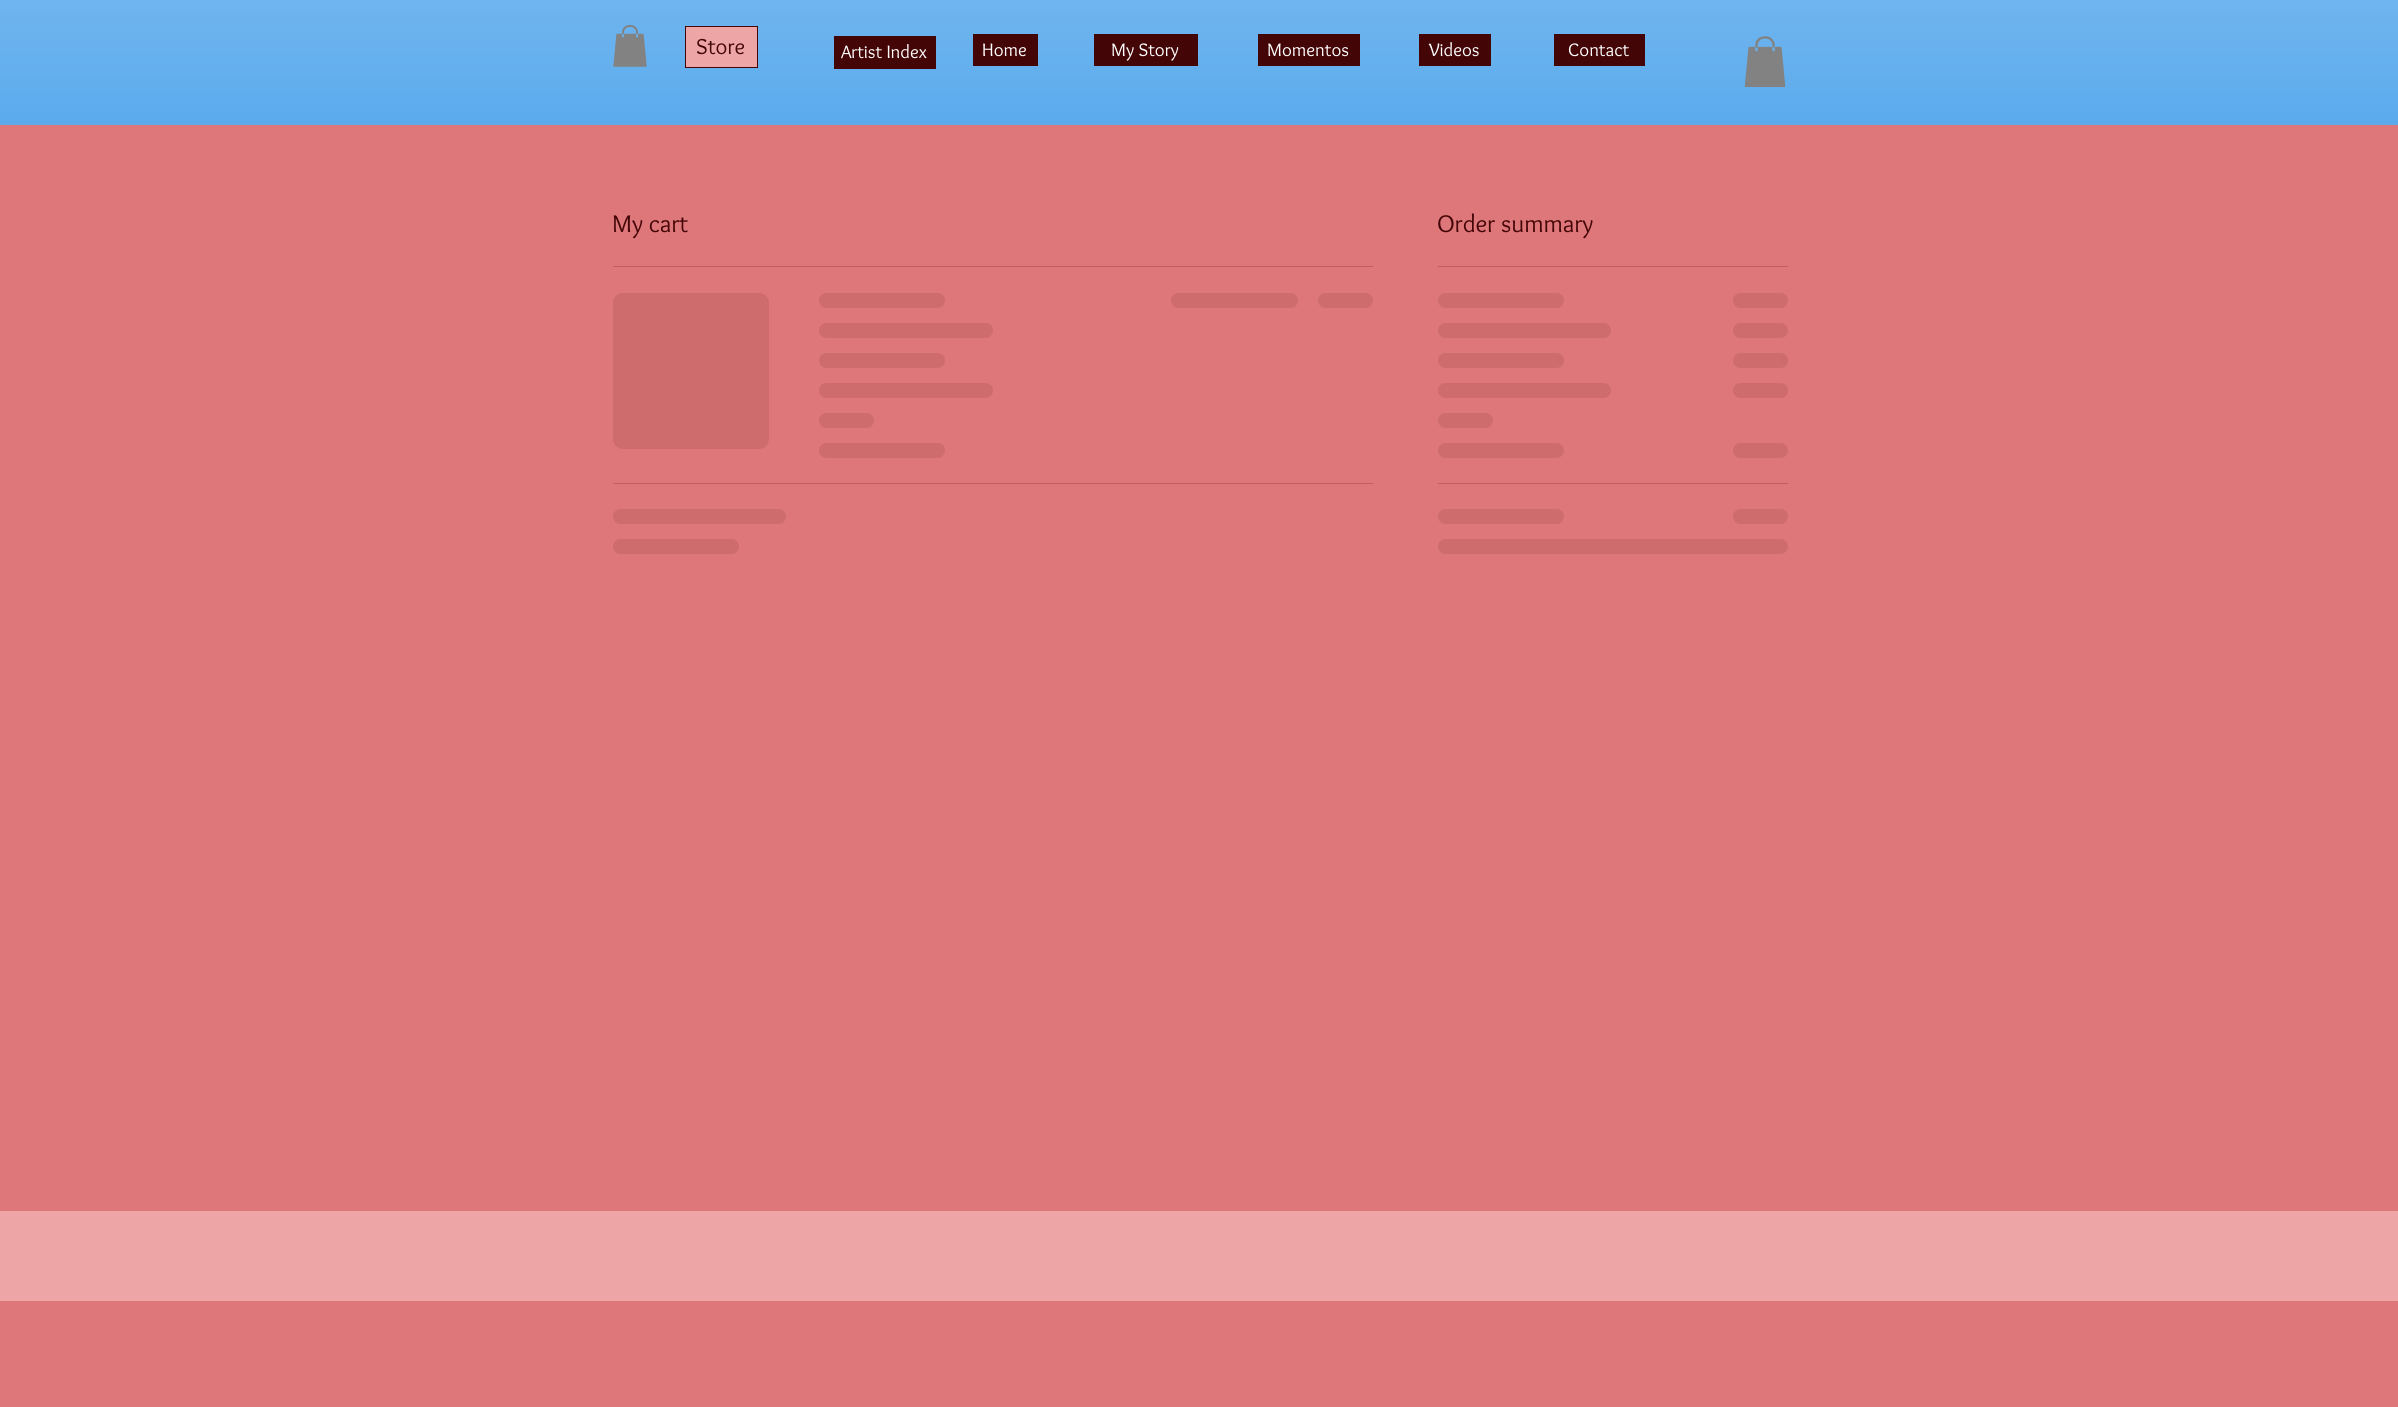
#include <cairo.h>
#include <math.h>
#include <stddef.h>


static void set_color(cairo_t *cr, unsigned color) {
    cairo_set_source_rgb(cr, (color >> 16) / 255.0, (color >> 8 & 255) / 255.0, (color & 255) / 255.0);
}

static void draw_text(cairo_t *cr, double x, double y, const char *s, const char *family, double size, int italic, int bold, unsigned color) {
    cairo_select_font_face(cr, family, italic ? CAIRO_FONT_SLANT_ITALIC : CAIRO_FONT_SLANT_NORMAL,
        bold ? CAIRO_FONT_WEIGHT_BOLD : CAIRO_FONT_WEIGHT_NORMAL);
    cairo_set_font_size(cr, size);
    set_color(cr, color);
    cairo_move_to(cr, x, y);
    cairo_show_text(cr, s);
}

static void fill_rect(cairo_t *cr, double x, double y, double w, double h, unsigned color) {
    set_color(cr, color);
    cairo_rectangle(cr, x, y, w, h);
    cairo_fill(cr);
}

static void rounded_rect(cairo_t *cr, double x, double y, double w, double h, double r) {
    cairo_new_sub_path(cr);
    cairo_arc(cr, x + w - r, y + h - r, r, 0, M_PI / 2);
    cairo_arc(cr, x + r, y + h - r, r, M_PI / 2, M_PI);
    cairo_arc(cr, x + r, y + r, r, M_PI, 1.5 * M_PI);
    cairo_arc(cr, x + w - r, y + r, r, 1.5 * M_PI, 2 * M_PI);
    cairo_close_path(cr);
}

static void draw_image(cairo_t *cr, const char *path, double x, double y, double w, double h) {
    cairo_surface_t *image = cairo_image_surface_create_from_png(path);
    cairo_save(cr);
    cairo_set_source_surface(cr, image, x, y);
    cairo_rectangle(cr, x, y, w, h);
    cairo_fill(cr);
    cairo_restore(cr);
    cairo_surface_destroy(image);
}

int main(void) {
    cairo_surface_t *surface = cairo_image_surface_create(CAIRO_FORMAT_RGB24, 2398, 1407);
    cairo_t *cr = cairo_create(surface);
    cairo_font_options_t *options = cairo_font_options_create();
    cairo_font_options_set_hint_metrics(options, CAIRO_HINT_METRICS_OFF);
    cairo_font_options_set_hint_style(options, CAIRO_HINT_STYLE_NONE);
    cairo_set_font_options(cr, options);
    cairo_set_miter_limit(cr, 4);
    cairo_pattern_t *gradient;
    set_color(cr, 0xDD7779);
    cairo_paint(cr);
    fill_rect(cr, 0, 0, 2398, 125, 0x3D9BE9);
    draw_image(cr, "assets/img1.png", 0, 0, 2398, 125);
    draw_image(cr, "assets/img2.png", 613, 25, 34, 42);
    set_color(cr, 0xEDA5A6);
    cairo_rectangle(cr, 685.5, 26.5, 72, 41);
    cairo_fill_preserve(cr);
    set_color(cr, 0x440506);
    cairo_set_line_width(cr, 1);
    cairo_stroke(cr);
    draw_text(cr, 696, 54, "Store", "Overlock", 22.5, 0, 0, 0x440506);
    fill_rect(cr, 834, 36, 102, 33, 0x440506);
    draw_text(cr, 841, 58, "Artist Index", "Overlock", 18.75, 0, 0, 0xFFFFFF);
    fill_rect(cr, 973, 34, 65, 32, 0x440506);
    draw_text(cr, 982, 56, "Home", "Overlock", 18.75, 0, 0, 0xFFFFFF);
    fill_rect(cr, 1094, 34, 104, 32, 0x440506);
    draw_text(cr, 1111, 56, "My Story", "Overlock", 18.75, 0, 0, 0xFFFFFF);
    fill_rect(cr, 1258, 34, 102, 32, 0x440506);
    draw_text(cr, 1267, 56, "Momentos", "Overlock", 18.75, 0, 0, 0xFFFFFF);
    fill_rect(cr, 1419, 34, 72, 32, 0x440506);
    draw_text(cr, 1429, 56, "Videos", "Overlock", 18.75, 0, 0, 0xFFFFFF);
    fill_rect(cr, 1554, 34, 91, 32, 0x440506);
    draw_text(cr, 1568, 56, "Contact", "Overlock", 18.75, 0, 0, 0xFFFFFF);
    draw_image(cr, "assets/img3.png", 1744, 36, 42, 51);
    fill_rect(cr, 613, 266, 760, 1, 0xBE6062);
    draw_text(cr, 612, 232, "My cart", "Overlock", 25, 0, 0, 0x440506);
    gradient = cairo_pattern_create_linear(613, 371, 1238, 371);
    cairo_pattern_add_color_stop_rgba(gradient, 0.25, 0.808, 0.424, 0.427, 1);
    cairo_pattern_add_color_stop_rgba(gradient, 0.37, 0.745, 0.376, 0.384, 1);
    cairo_pattern_add_color_stop_rgba(gradient, 0.63, 0.808, 0.424, 0.427, 1);
    cairo_set_source(cr, gradient);
    cairo_pattern_destroy(gradient);
    rounded_rect(cr, 613, 293, 156, 156, 10);
    cairo_fill(cr);
    gradient = cairo_pattern_create_linear(819, 300, 1324, 300);
    cairo_pattern_add_color_stop_rgba(gradient, 0.25, 0.808, 0.424, 0.427, 1);
    cairo_pattern_add_color_stop_rgba(gradient, 0.37, 0.745, 0.376, 0.384, 1);
    cairo_pattern_add_color_stop_rgba(gradient, 0.63, 0.808, 0.424, 0.427, 1);
    cairo_set_source(cr, gradient);
    cairo_pattern_destroy(gradient);
    rounded_rect(cr, 819, 293, 126, 15, 7.5);
    cairo_fill(cr);
    gradient = cairo_pattern_create_linear(819, 330, 1514, 330);
    cairo_pattern_add_color_stop_rgba(gradient, 0.25, 0.808, 0.424, 0.427, 1);
    cairo_pattern_add_color_stop_rgba(gradient, 0.37, 0.745, 0.376, 0.384, 1);
    cairo_pattern_add_color_stop_rgba(gradient, 0.63, 0.808, 0.424, 0.427, 1);
    cairo_set_source(cr, gradient);
    cairo_pattern_destroy(gradient);
    rounded_rect(cr, 819, 323, 174, 15, 7.5);
    cairo_fill(cr);
    gradient = cairo_pattern_create_linear(819, 360, 1324, 360);
    cairo_pattern_add_color_stop_rgba(gradient, 0.25, 0.808, 0.424, 0.427, 1);
    cairo_pattern_add_color_stop_rgba(gradient, 0.37, 0.745, 0.376, 0.384, 1);
    cairo_pattern_add_color_stop_rgba(gradient, 0.63, 0.808, 0.424, 0.427, 1);
    cairo_set_source(cr, gradient);
    cairo_pattern_destroy(gradient);
    rounded_rect(cr, 819, 353, 126, 15, 7.5);
    cairo_fill(cr);
    gradient = cairo_pattern_create_linear(819, 390, 1514, 390);
    cairo_pattern_add_color_stop_rgba(gradient, 0.25, 0.808, 0.424, 0.427, 1);
    cairo_pattern_add_color_stop_rgba(gradient, 0.37, 0.745, 0.376, 0.384, 1);
    cairo_pattern_add_color_stop_rgba(gradient, 0.63, 0.808, 0.424, 0.427, 1);
    cairo_set_source(cr, gradient);
    cairo_pattern_destroy(gradient);
    rounded_rect(cr, 819, 383, 174, 15, 7.5);
    cairo_fill(cr);
    gradient = cairo_pattern_create_linear(819, 420, 1039, 420);
    cairo_pattern_add_color_stop_rgba(gradient, 0.25, 0.808, 0.424, 0.427, 1);
    cairo_pattern_add_color_stop_rgba(gradient, 0.37, 0.745, 0.376, 0.384, 1);
    cairo_pattern_add_color_stop_rgba(gradient, 0.63, 0.808, 0.424, 0.427, 1);
    cairo_set_source(cr, gradient);
    cairo_pattern_destroy(gradient);
    rounded_rect(cr, 819, 413, 55, 15, 7.5);
    cairo_fill(cr);
    gradient = cairo_pattern_create_linear(819, 450, 1324, 450);
    cairo_pattern_add_color_stop_rgba(gradient, 0.25, 0.808, 0.424, 0.427, 1);
    cairo_pattern_add_color_stop_rgba(gradient, 0.37, 0.745, 0.376, 0.384, 1);
    cairo_pattern_add_color_stop_rgba(gradient, 0.63, 0.808, 0.424, 0.427, 1);
    cairo_set_source(cr, gradient);
    cairo_pattern_destroy(gradient);
    rounded_rect(cr, 819, 443, 126, 15, 7.5);
    cairo_fill(cr);
    gradient = cairo_pattern_create_linear(1171, 300, 1676, 300);
    cairo_pattern_add_color_stop_rgba(gradient, 0.25, 0.808, 0.424, 0.427, 1);
    cairo_pattern_add_color_stop_rgba(gradient, 0.37, 0.745, 0.376, 0.384, 1);
    cairo_pattern_add_color_stop_rgba(gradient, 0.63, 0.808, 0.424, 0.427, 1);
    cairo_set_source(cr, gradient);
    cairo_pattern_destroy(gradient);
    rounded_rect(cr, 1171, 293, 127, 15, 7.5);
    cairo_fill(cr);
    gradient = cairo_pattern_create_linear(1318, 300, 1538, 300);
    cairo_pattern_add_color_stop_rgba(gradient, 0.25, 0.808, 0.424, 0.427, 1);
    cairo_pattern_add_color_stop_rgba(gradient, 0.37, 0.745, 0.376, 0.384, 1);
    cairo_pattern_add_color_stop_rgba(gradient, 0.63, 0.808, 0.424, 0.427, 1);
    cairo_set_source(cr, gradient);
    cairo_pattern_destroy(gradient);
    rounded_rect(cr, 1318, 293, 55, 15, 7.5);
    cairo_fill(cr);
    fill_rect(cr, 613, 483, 760, 1, 0xBE6062);
    gradient = cairo_pattern_create_linear(613, 516, 1308, 516);
    cairo_pattern_add_color_stop_rgba(gradient, 0.25, 0.808, 0.424, 0.427, 1);
    cairo_pattern_add_color_stop_rgba(gradient, 0.37, 0.745, 0.376, 0.384, 1);
    cairo_pattern_add_color_stop_rgba(gradient, 0.63, 0.808, 0.424, 0.427, 1);
    cairo_set_source(cr, gradient);
    cairo_pattern_destroy(gradient);
    rounded_rect(cr, 613, 509, 173, 15, 7.5);
    cairo_fill(cr);
    gradient = cairo_pattern_create_linear(613, 546, 1118, 546);
    cairo_pattern_add_color_stop_rgba(gradient, 0.25, 0.808, 0.424, 0.427, 1);
    cairo_pattern_add_color_stop_rgba(gradient, 0.37, 0.745, 0.376, 0.384, 1);
    cairo_pattern_add_color_stop_rgba(gradient, 0.63, 0.808, 0.424, 0.427, 1);
    cairo_set_source(cr, gradient);
    cairo_pattern_destroy(gradient);
    rounded_rect(cr, 613, 539, 126, 15, 7.5);
    cairo_fill(cr);
    fill_rect(cr, 1438, 266, 350, 1, 0xBE6062);
    draw_text(cr, 1437, 232, "Order summary", "Overlock", 25, 0, 0, 0x440506);
    gradient = cairo_pattern_create_linear(1438, 300, 1943, 300);
    cairo_pattern_add_color_stop_rgba(gradient, 0.25, 0.808, 0.424, 0.427, 1);
    cairo_pattern_add_color_stop_rgba(gradient, 0.37, 0.745, 0.376, 0.384, 1);
    cairo_pattern_add_color_stop_rgba(gradient, 0.63, 0.808, 0.424, 0.427, 1);
    cairo_set_source(cr, gradient);
    cairo_pattern_destroy(gradient);
    rounded_rect(cr, 1438, 293, 126, 15, 7.5);
    cairo_fill(cr);
    gradient = cairo_pattern_create_linear(1733, 300, 1953, 300);
    cairo_pattern_add_color_stop_rgba(gradient, 0.25, 0.808, 0.424, 0.427, 1);
    cairo_pattern_add_color_stop_rgba(gradient, 0.37, 0.745, 0.376, 0.384, 1);
    cairo_pattern_add_color_stop_rgba(gradient, 0.63, 0.808, 0.424, 0.427, 1);
    cairo_set_source(cr, gradient);
    cairo_pattern_destroy(gradient);
    rounded_rect(cr, 1733, 293, 55, 15, 7.5);
    cairo_fill(cr);
    gradient = cairo_pattern_create_linear(1438, 330, 2133, 330);
    cairo_pattern_add_color_stop_rgba(gradient, 0.25, 0.808, 0.424, 0.427, 1);
    cairo_pattern_add_color_stop_rgba(gradient, 0.37, 0.745, 0.376, 0.384, 1);
    cairo_pattern_add_color_stop_rgba(gradient, 0.63, 0.808, 0.424, 0.427, 1);
    cairo_set_source(cr, gradient);
    cairo_pattern_destroy(gradient);
    rounded_rect(cr, 1438, 323, 173, 15, 7.5);
    cairo_fill(cr);
    gradient = cairo_pattern_create_linear(1733, 330, 1953, 330);
    cairo_pattern_add_color_stop_rgba(gradient, 0.25, 0.808, 0.424, 0.427, 1);
    cairo_pattern_add_color_stop_rgba(gradient, 0.37, 0.745, 0.376, 0.384, 1);
    cairo_pattern_add_color_stop_rgba(gradient, 0.63, 0.808, 0.424, 0.427, 1);
    cairo_set_source(cr, gradient);
    cairo_pattern_destroy(gradient);
    rounded_rect(cr, 1733, 323, 55, 15, 7.5);
    cairo_fill(cr);
    gradient = cairo_pattern_create_linear(1438, 360, 1943, 360);
    cairo_pattern_add_color_stop_rgba(gradient, 0.25, 0.808, 0.424, 0.427, 1);
    cairo_pattern_add_color_stop_rgba(gradient, 0.37, 0.745, 0.376, 0.384, 1);
    cairo_pattern_add_color_stop_rgba(gradient, 0.63, 0.808, 0.424, 0.427, 1);
    cairo_set_source(cr, gradient);
    cairo_pattern_destroy(gradient);
    rounded_rect(cr, 1438, 353, 126, 15, 7.5);
    cairo_fill(cr);
    gradient = cairo_pattern_create_linear(1733, 360, 1953, 360);
    cairo_pattern_add_color_stop_rgba(gradient, 0.25, 0.808, 0.424, 0.427, 1);
    cairo_pattern_add_color_stop_rgba(gradient, 0.37, 0.745, 0.376, 0.384, 1);
    cairo_pattern_add_color_stop_rgba(gradient, 0.63, 0.808, 0.424, 0.427, 1);
    cairo_set_source(cr, gradient);
    cairo_pattern_destroy(gradient);
    rounded_rect(cr, 1733, 353, 55, 15, 7.5);
    cairo_fill(cr);
    gradient = cairo_pattern_create_linear(1438, 390, 2133, 390);
    cairo_pattern_add_color_stop_rgba(gradient, 0.25, 0.808, 0.424, 0.427, 1);
    cairo_pattern_add_color_stop_rgba(gradient, 0.37, 0.745, 0.376, 0.384, 1);
    cairo_pattern_add_color_stop_rgba(gradient, 0.63, 0.808, 0.424, 0.427, 1);
    cairo_set_source(cr, gradient);
    cairo_pattern_destroy(gradient);
    rounded_rect(cr, 1438, 383, 173, 15, 7.5);
    cairo_fill(cr);
    gradient = cairo_pattern_create_linear(1733, 390, 1953, 390);
    cairo_pattern_add_color_stop_rgba(gradient, 0.25, 0.808, 0.424, 0.427, 1);
    cairo_pattern_add_color_stop_rgba(gradient, 0.37, 0.745, 0.376, 0.384, 1);
    cairo_pattern_add_color_stop_rgba(gradient, 0.63, 0.808, 0.424, 0.427, 1);
    cairo_set_source(cr, gradient);
    cairo_pattern_destroy(gradient);
    rounded_rect(cr, 1733, 383, 55, 15, 7.5);
    cairo_fill(cr);
    gradient = cairo_pattern_create_linear(1438, 420, 1658, 420);
    cairo_pattern_add_color_stop_rgba(gradient, 0.25, 0.808, 0.424, 0.427, 1);
    cairo_pattern_add_color_stop_rgba(gradient, 0.37, 0.745, 0.376, 0.384, 1);
    cairo_pattern_add_color_stop_rgba(gradient, 0.63, 0.808, 0.424, 0.427, 1);
    cairo_set_source(cr, gradient);
    cairo_pattern_destroy(gradient);
    rounded_rect(cr, 1438, 413, 55, 15, 7.5);
    cairo_fill(cr);
    gradient = cairo_pattern_create_linear(1438, 450, 1943, 450);
    cairo_pattern_add_color_stop_rgba(gradient, 0.25, 0.808, 0.424, 0.427, 1);
    cairo_pattern_add_color_stop_rgba(gradient, 0.37, 0.745, 0.376, 0.384, 1);
    cairo_pattern_add_color_stop_rgba(gradient, 0.63, 0.808, 0.424, 0.427, 1);
    cairo_set_source(cr, gradient);
    cairo_pattern_destroy(gradient);
    rounded_rect(cr, 1438, 443, 126, 15, 7.5);
    cairo_fill(cr);
    gradient = cairo_pattern_create_linear(1733, 450, 1953, 450);
    cairo_pattern_add_color_stop_rgba(gradient, 0.25, 0.808, 0.424, 0.427, 1);
    cairo_pattern_add_color_stop_rgba(gradient, 0.37, 0.745, 0.376, 0.384, 1);
    cairo_pattern_add_color_stop_rgba(gradient, 0.63, 0.808, 0.424, 0.427, 1);
    cairo_set_source(cr, gradient);
    cairo_pattern_destroy(gradient);
    rounded_rect(cr, 1733, 443, 55, 15, 7.5);
    cairo_fill(cr);
    fill_rect(cr, 1438, 483, 350, 1, 0xBE6062);
    gradient = cairo_pattern_create_linear(1438, 516, 1943, 516);
    cairo_pattern_add_color_stop_rgba(gradient, 0.25, 0.808, 0.424, 0.427, 1);
    cairo_pattern_add_color_stop_rgba(gradient, 0.37, 0.745, 0.376, 0.384, 1);
    cairo_pattern_add_color_stop_rgba(gradient, 0.63, 0.808, 0.424, 0.427, 1);
    cairo_set_source(cr, gradient);
    cairo_pattern_destroy(gradient);
    rounded_rect(cr, 1438, 509, 126, 15, 7.5);
    cairo_fill(cr);
    gradient = cairo_pattern_create_linear(1733, 516, 1953, 516);
    cairo_pattern_add_color_stop_rgba(gradient, 0.25, 0.808, 0.424, 0.427, 1);
    cairo_pattern_add_color_stop_rgba(gradient, 0.37, 0.745, 0.376, 0.384, 1);
    cairo_pattern_add_color_stop_rgba(gradient, 0.63, 0.808, 0.424, 0.427, 1);
    cairo_set_source(cr, gradient);
    cairo_pattern_destroy(gradient);
    rounded_rect(cr, 1733, 509, 55, 15, 7.5);
    cairo_fill(cr);
    gradient = cairo_pattern_create_linear(1438, 546, 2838, 546);
    cairo_pattern_add_color_stop_rgba(gradient, 0.25, 0.808, 0.424, 0.427, 1);
    cairo_pattern_add_color_stop_rgba(gradient, 0.37, 0.745, 0.376, 0.384, 1);
    cairo_pattern_add_color_stop_rgba(gradient, 0.63, 0.808, 0.424, 0.427, 1);
    cairo_set_source(cr, gradient);
    cairo_pattern_destroy(gradient);
    rounded_rect(cr, 1438, 539, 350, 15, 7.5);
    cairo_fill(cr);
    fill_rect(cr, 0, 1211, 2398, 90, 0xEDA5A6);
    cairo_surface_write_to_png(surface, "output.png");
    cairo_font_options_destroy(options);
    cairo_destroy(cr);
    cairo_surface_destroy(surface);
    return 0;
}
